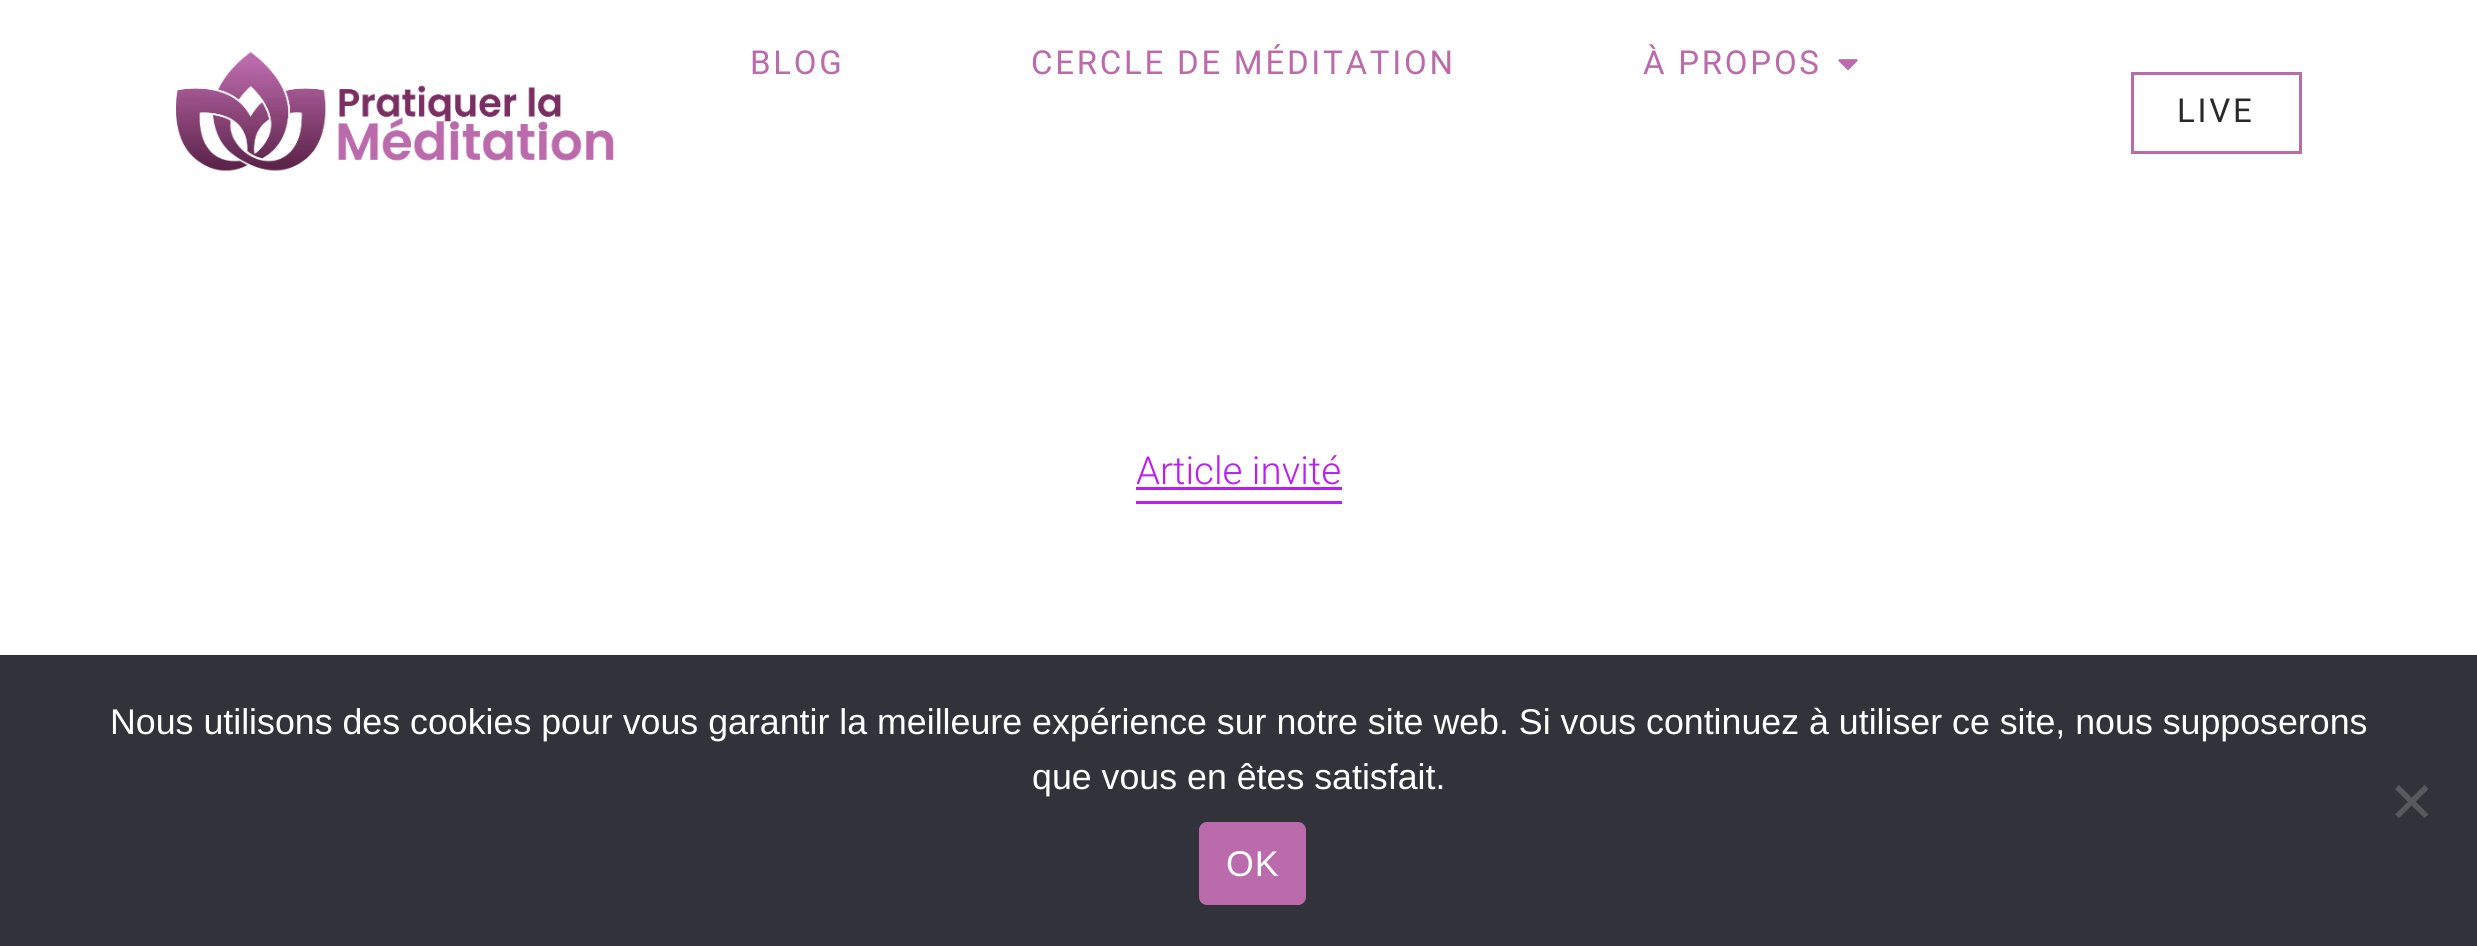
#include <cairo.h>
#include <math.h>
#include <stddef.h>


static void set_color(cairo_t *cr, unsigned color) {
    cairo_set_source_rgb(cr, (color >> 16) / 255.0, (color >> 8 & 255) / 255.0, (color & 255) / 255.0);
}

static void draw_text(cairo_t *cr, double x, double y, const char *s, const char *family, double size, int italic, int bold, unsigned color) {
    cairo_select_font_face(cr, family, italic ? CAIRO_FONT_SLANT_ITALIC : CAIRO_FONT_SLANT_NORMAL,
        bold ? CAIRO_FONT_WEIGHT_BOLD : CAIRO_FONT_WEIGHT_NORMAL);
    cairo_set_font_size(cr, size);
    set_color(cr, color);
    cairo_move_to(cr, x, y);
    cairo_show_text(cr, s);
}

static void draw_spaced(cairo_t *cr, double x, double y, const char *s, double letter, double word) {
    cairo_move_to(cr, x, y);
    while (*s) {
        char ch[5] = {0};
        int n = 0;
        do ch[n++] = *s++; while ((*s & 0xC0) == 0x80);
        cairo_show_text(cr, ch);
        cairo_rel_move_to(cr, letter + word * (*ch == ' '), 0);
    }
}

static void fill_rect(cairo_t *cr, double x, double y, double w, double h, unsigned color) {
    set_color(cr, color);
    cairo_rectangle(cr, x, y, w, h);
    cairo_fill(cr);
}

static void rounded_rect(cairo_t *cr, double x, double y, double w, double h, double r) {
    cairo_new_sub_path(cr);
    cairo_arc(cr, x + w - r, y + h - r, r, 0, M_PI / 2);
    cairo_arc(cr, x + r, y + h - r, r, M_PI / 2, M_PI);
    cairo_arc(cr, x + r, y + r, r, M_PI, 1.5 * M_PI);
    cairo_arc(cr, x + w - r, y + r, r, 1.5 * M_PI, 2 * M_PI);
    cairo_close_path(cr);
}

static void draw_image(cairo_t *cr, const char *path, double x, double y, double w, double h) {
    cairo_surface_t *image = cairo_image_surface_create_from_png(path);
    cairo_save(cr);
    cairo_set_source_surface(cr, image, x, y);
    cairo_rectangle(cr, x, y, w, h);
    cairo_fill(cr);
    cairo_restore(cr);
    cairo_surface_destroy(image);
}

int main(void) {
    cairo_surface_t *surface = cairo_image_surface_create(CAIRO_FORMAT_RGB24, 2477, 946);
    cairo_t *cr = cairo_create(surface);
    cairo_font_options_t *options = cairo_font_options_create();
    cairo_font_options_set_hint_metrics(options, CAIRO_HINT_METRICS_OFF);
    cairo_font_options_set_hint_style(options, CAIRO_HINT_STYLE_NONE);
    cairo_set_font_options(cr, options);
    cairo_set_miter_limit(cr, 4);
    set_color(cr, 0xFFFFFF);
    cairo_paint(cr);
    draw_image(cr, "assets/img1.png", 176, 52, 438, 119);
    cairo_select_font_face(cr, "Roboto", CAIRO_FONT_SLANT_NORMAL, CAIRO_FONT_WEIGHT_NORMAL);
    cairo_set_font_size(cr, 33);
    set_color(cr, 0xBB6BAB);
    draw_spaced(cr, 750, 74, "BLOG", 2.75, 0);
    draw_spaced(cr, 1031, 74, "CERCLE DE MÉDITATION", 2.75, 0);
    draw_spaced(cr, 1643, 74, "À PROPOS", 2.75, 0);
    draw_image(cr, "assets/img2.png", 1838, 59, 20, 11);
    cairo_rectangle(cr, 2132.5, 73.5, 168, 79);
    cairo_set_line_width(cr, 3);
    cairo_stroke(cr);
    set_color(cr, 0x29292A);
    draw_spaced(cr, 2177, 122, "LIVE", 2.75, 0);
    fill_rect(cr, 1136, 501, 206, 3, 0xBC1CF6);
    draw_text(cr, 1136, 484, "Article invité", "Roboto Light", 38.5, 0, 0, 0xBC1CF6);
    fill_rect(cr, 1136, 487, 206, 3, 0xBC1CF6);
    fill_rect(cr, 0, 655, 2477, 291, 0x32323A);
    draw_text(cr, 110, 734, "Nous utilisons des cookies pour vous garantir la meilleure expérience sur notre site web. Si vous continuez à utiliser ce site, nous supposerons", "Liberation Sans", 35.75, 0, 0, 0xFFFFFF);
    draw_text(cr, 1032, 789, "que vous en êtes satisfait.", "Liberation Sans", 35.75, 0, 0, 0xFFFFFF);
    set_color(cr, 0x59595D);
    cairo_new_path(cr);
    cairo_move_to(cr, 2424.5, 785);
    cairo_line_to(cr, 2428.5, 789);
    cairo_line_to(cr, 2399, 818);
    cairo_line_to(cr, 2395, 814.5);
    cairo_close_path(cr);
    cairo_fill(cr);
    cairo_new_path(cr);
    cairo_move_to(cr, 2395, 789);
    cairo_line_to(cr, 2399, 785);
    cairo_line_to(cr, 2428.5, 814.5);
    cairo_line_to(cr, 2424.5, 818);
    cairo_close_path(cr);
    cairo_fill(cr);
    set_color(cr, 0xBB6BAB);
    rounded_rect(cr, 1199, 822, 107, 83, 8);
    cairo_fill(cr);
    set_color(cr, 0xFFFFFF);
    draw_spaced(cr, 1226, 876, "OK", 1, 0);
    cairo_surface_write_to_png(surface, "output.png");
    cairo_font_options_destroy(options);
    cairo_destroy(cr);
    cairo_surface_destroy(surface);
    return 0;
}
